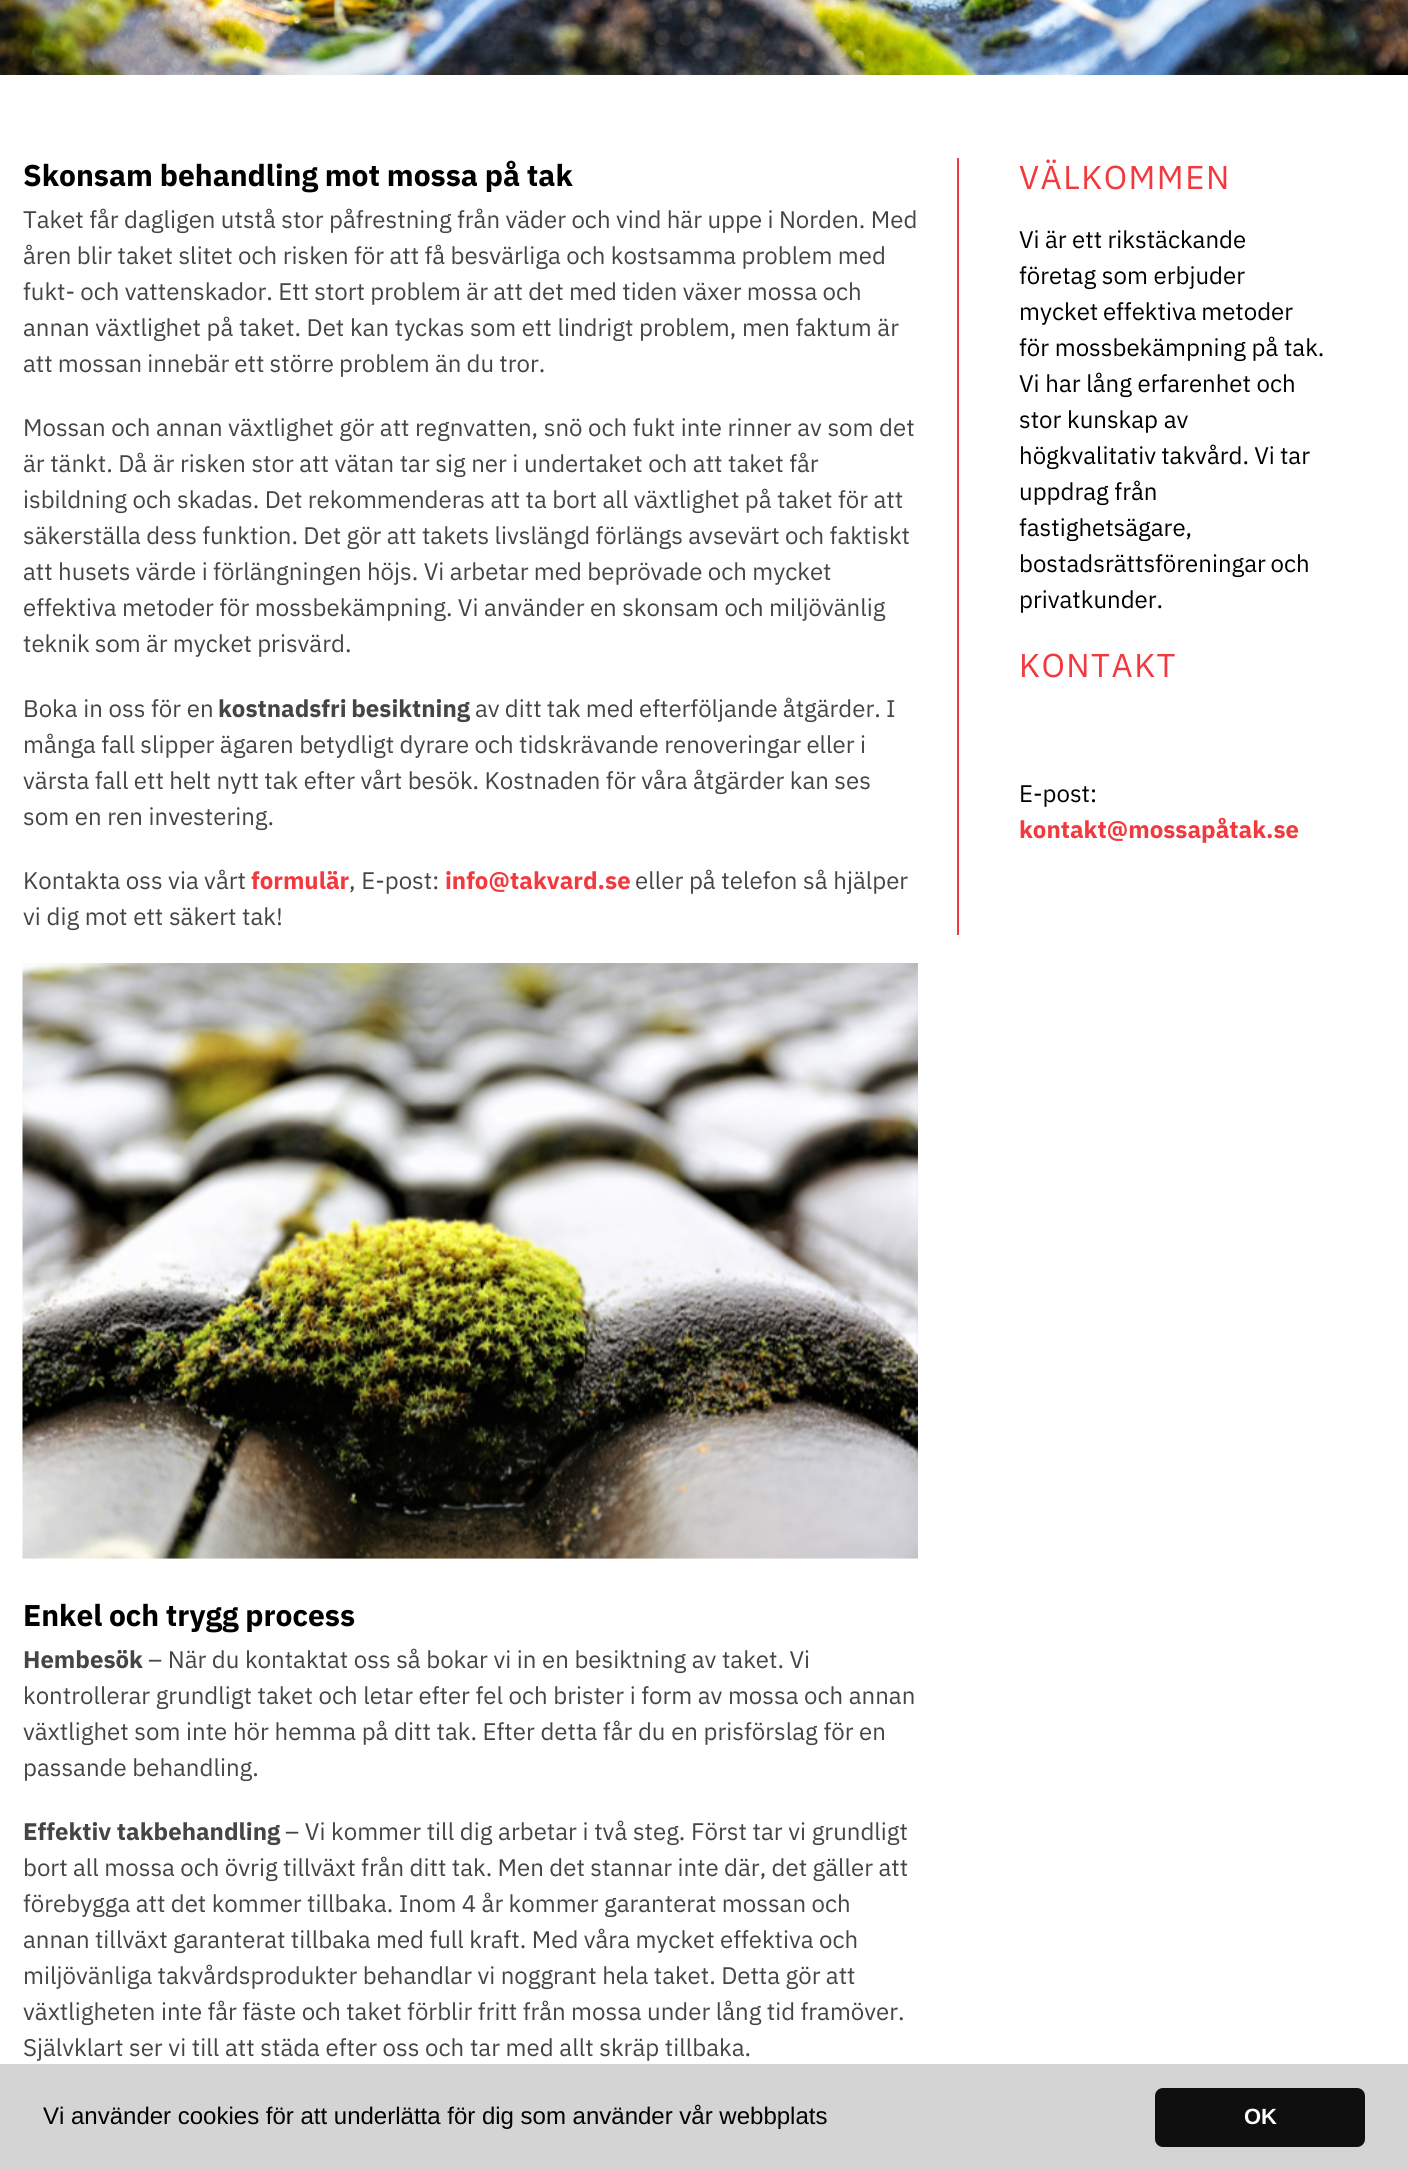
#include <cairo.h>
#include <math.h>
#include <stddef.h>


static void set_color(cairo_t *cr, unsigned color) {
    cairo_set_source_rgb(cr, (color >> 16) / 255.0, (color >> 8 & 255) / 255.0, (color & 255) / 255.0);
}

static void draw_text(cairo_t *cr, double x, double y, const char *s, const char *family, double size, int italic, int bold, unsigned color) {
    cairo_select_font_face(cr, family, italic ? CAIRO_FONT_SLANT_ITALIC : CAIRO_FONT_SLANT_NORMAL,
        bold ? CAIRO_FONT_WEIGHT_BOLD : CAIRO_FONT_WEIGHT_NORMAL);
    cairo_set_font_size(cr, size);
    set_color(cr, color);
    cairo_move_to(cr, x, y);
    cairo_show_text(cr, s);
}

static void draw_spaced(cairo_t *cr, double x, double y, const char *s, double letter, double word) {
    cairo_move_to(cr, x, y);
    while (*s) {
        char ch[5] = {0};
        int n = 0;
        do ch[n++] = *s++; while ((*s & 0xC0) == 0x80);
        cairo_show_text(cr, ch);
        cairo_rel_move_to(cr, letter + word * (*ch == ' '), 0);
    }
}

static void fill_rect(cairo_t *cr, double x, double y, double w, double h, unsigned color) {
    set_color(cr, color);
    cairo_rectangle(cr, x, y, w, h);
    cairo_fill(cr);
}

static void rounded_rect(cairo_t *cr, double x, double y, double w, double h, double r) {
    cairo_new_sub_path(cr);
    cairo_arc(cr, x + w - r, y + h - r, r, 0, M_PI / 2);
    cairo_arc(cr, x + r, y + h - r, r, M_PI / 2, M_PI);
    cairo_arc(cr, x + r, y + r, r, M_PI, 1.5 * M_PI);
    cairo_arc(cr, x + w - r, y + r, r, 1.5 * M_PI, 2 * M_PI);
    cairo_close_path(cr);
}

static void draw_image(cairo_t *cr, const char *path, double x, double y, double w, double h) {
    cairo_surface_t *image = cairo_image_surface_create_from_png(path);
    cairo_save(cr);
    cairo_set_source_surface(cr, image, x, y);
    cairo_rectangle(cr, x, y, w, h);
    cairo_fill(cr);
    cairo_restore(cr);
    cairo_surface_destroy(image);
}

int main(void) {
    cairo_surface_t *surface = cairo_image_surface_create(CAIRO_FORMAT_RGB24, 1408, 2170);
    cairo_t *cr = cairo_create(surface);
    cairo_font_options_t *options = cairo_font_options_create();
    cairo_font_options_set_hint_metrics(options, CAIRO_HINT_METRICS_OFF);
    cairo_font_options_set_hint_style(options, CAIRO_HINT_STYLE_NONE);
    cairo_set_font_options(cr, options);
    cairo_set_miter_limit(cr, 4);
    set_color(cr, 0xFFFFFF);
    cairo_paint(cr);
    draw_image(cr, "assets/img1.png", 0, 0, 1408, 75);
    cairo_select_font_face(cr, "IBM Plex Sans", CAIRO_FONT_SLANT_NORMAL, CAIRO_FONT_WEIGHT_BOLD);
    cairo_set_font_size(cr, 30);
    set_color(cr, 0x000000);
    draw_spaced(cr, 23, 186, "Skonsam behandling mot mossa på tak", 0, -0.25);
    cairo_select_font_face(cr, "IBM Plex Sans", CAIRO_FONT_SLANT_NORMAL, CAIRO_FONT_WEIGHT_NORMAL);
    cairo_set_font_size(cr, 24);
    set_color(cr, 0x454545);
    draw_spaced(cr, 23, 228, "Taket får dagligen utstå stor påfrestning från väder och vind här uppe i Norden. Med", 0, -0.25);
    draw_spaced(cr, 23, 264, "åren blir taket slitet och risken för att få besvärliga och kostsamma problem med", 0, -0.25);
    draw_spaced(cr, 23, 300, "fukt- och vattenskador. Ett stort problem är att det med tiden växer mossa och", 0, -0.4);
    draw_text(cr, 23, 336, "annan växtlighet på taket. Det kan tyckas som ett lindrigt problem, men faktum är", "IBM Plex Sans", 24, 0, 0, 0x454545);
    draw_spaced(cr, 23, 372, "att mossan innebär ett större problem än du tror.", 0, -0.5);
    draw_spaced(cr, 23, 436, "Mossan och annan växtlighet gör att regnvatten, snö och fukt inte rinner av som det", 0, -0.1);
    draw_spaced(cr, 23, 472, "är tänkt. Då är risken stor att vätan tar sig ner i undertaket och att taket får", 0, -0.1);
    draw_spaced(cr, 23, 508, "isbildning och skadas. Det rekommenderas att ta bort all växtlighet på taket för att", 0, -0.2);
    draw_spaced(cr, 23, 544, "säkerställa dess funktion. Det gör att takets livslängd förlängs avsevärt och faktiskt", 0, -0.25);
    draw_spaced(cr, 23, 580, "att husets värde i förlängningen höjs. Vi arbetar med beprövade och mycket", 0, -0.25);
    draw_spaced(cr, 23, 616, "effektiva metoder för mossbekämpning. Vi använder en skonsam och miljövänlig", 0, -0.25);
    draw_spaced(cr, 23, 652, "teknik som är mycket prisvärd.", 0, -0.5);
    draw_text(cr, 23, 717, "Boka in oss för en", "IBM Plex Sans", 24, 0, 0, 0x454545);
    cairo_select_font_face(cr, "IBM Plex Sans", CAIRO_FONT_SLANT_NORMAL, CAIRO_FONT_WEIGHT_BOLD);
    draw_spaced(cr, 218, 717, "kostnadsfri besiktning", 0, -1);
    cairo_select_font_face(cr, "IBM Plex Sans", CAIRO_FONT_SLANT_NORMAL, CAIRO_FONT_WEIGHT_NORMAL);
    draw_spaced(cr, 475, 717, "av ditt tak med efterföljande åtgärder. I", 0, -0.5);
    draw_spaced(cr, 23, 753, "många fall slipper ägaren betydligt dyrare och tidskrävande renoveringar eller i", 0, -0.25);
    draw_spaced(cr, 23, 789, "värsta fall ett helt nytt tak efter vårt besök. Kostnaden för våra åtgärder kan ses", 0, -0.25);
    draw_text(cr, 23, 825, "som en ren investering.", "IBM Plex Sans", 24, 0, 0, 0x454545);
    draw_spaced(cr, 23, 889, "Kontakta oss via vårt", 0, -0.25);
    draw_text(cr, 251, 889, "formulär", "IBM Plex Sans", 24, 0, 1, 0xF2393E);
    draw_text(cr, 349, 889, ", E-post:", "IBM Plex Sans", 24, 0, 0, 0x454545);
    draw_text(cr, 445, 889, "info@takvard.se", "IBM Plex Sans", 24, 0, 1, 0xF2393E);
    draw_text(cr, 635, 889, "eller på telefon så hjälper", "IBM Plex Sans", 24, 0, 0, 0x454545);
    draw_text(cr, 23, 925, "vi dig mot ett säkert tak!", "IBM Plex Sans", 24, 0, 0, 0x454545);
    draw_image(cr, "assets/img2.png", 22, 963, 896, 596);
    cairo_select_font_face(cr, "IBM Plex Sans", CAIRO_FONT_SLANT_NORMAL, CAIRO_FONT_WEIGHT_BOLD);
    cairo_set_font_size(cr, 30);
    set_color(cr, 0x000000);
    draw_spaced(cr, 23, 1626, "Enkel och trygg process", 0, -0.5);
    draw_text(cr, 23, 1668, "Hembesök", "IBM Plex Sans", 24, 0, 1, 0x454545);
    cairo_select_font_face(cr, "IBM Plex Sans", CAIRO_FONT_SLANT_NORMAL, CAIRO_FONT_WEIGHT_NORMAL);
    draw_spaced(cr, 148, 1668, "– När du kontaktat oss så bokar vi in en besiktning av taket. Vi", 0, -0.1);
    draw_spaced(cr, 23, 1704, "kontrollerar grundligt taket och letar efter fel och brister i form av mossa och annan", 0, -0.1);
    draw_text(cr, 23, 1740, "växtlighet som inte hör hemma på ditt tak. Efter detta får du en prisförslag för en", "IBM Plex Sans", 24, 0, 0, 0x454545);
    draw_text(cr, 23, 1776, "passande behandling.", "IBM Plex Sans", 24, 0, 0, 0x454545);
    draw_text(cr, 23, 1840, "Effektiv takbehandling", "IBM Plex Sans", 24, 0, 1, 0x454545);
    draw_text(cr, 285, 1840, "– Vi kommer till dig arbetar i två steg. Först tar vi grundligt", "IBM Plex Sans", 24, 0, 0, 0x454545);
    draw_spaced(cr, 23, 1876, "bort all mossa och övrig tillväxt från ditt tak. Men det stannar inte där, det gäller att", 0, -0.25);
    draw_spaced(cr, 23, 1912, "förebygga att det kommer tillbaka. Inom 4 år kommer garanterat mossan och", 0, -0.25);
    draw_spaced(cr, 23, 1948, "annan tillväxt garanterat tillbaka med full kraft. Med våra mycket effektiva och", 0, -0.25);
    draw_spaced(cr, 23, 1984, "miljövänliga takvårdsprodukter behandlar vi noggrant hela taket. Detta gör att", 0, -0.25);
    draw_spaced(cr, 23, 2020, "växtligheten inte får fäste och taket förblir fritt från mossa under lång tid framöver.", 0, -0.25);
    draw_text(cr, 23, 2056, "Självklart ser vi till att städa efter oss och tar med allt skräp tillbaka.", "IBM Plex Sans", 24, 0, 0, 0x454545);
    fill_rect(cr, 957, 158, 2, 777, 0xF2393E);
    cairo_set_font_size(cr, 33);
    draw_spaced(cr, 1019, 189, "VÄLKOMMEN", 1.5, 0);
    cairo_set_font_size(cr, 24);
    set_color(cr, 0x000000);
    draw_spaced(cr, 1019, 248, "Vi är ett rikstäckande", 0, -0.25);
    draw_text(cr, 1019, 284, "företag som erbjuder", "IBM Plex Sans", 24, 0, 0, 0x000000);
    draw_spaced(cr, 1019, 320, "mycket effektiva metoder", 0, -1);
    draw_text(cr, 1019, 356, "för mossbekämpning på tak.", "IBM Plex Sans", 24, 0, 0, 0x000000);
    draw_text(cr, 1019, 392, "Vi har lång erfarenhet och", "IBM Plex Sans", 24, 0, 0, 0x000000);
    draw_text(cr, 1019, 428, "stor kunskap av", "IBM Plex Sans", 24, 0, 0, 0x000000);
    draw_spaced(cr, 1019, 464, "högkvalitativ takvård. Vi tar", 0, -0.5);
    draw_text(cr, 1019, 500, "uppdrag från", "IBM Plex Sans", 24, 0, 0, 0x000000);
    draw_text(cr, 1019, 536, "fastighetsägare,", "IBM Plex Sans", 24, 0, 0, 0x000000);
    draw_spaced(cr, 1019, 572, "bostadsrättsföreningar och", 0, -1);
    draw_text(cr, 1019, 608, "privatkunder.", "IBM Plex Sans", 24, 0, 0, 0x000000);
    cairo_set_font_size(cr, 33);
    set_color(cr, 0xF2393E);
    draw_spaced(cr, 1019, 677, "KONTAKT", 1.5, 0);
    draw_text(cr, 1019, 802, "E-post:", "IBM Plex Sans", 24, 0, 0, 0x000000);
    draw_text(cr, 1019, 838, "kontakt@mossapåtak.se", "IBM Plex Sans", 24, 0, 1, 0xF2393E);
    fill_rect(cr, 0, 2064, 1408, 106, 0xD4D4D4);
    draw_text(cr, 43, 2124, "Vi använder cookies för att underlätta för dig som använder vår webbplats", "Liberation Sans", 24, 0, 0, 0x000000);
    set_color(cr, 0x0F0F0F);
    rounded_rect(cr, 1155, 2088, 210, 59, 8);
    cairo_fill(cr);
    draw_text(cr, 1244, 2124, "OK", "Liberation Sans", 22, 0, 1, 0xFFFFFF);
    cairo_surface_write_to_png(surface, "output.png");
    cairo_font_options_destroy(options);
    cairo_destroy(cr);
    cairo_surface_destroy(surface);
    return 0;
}
